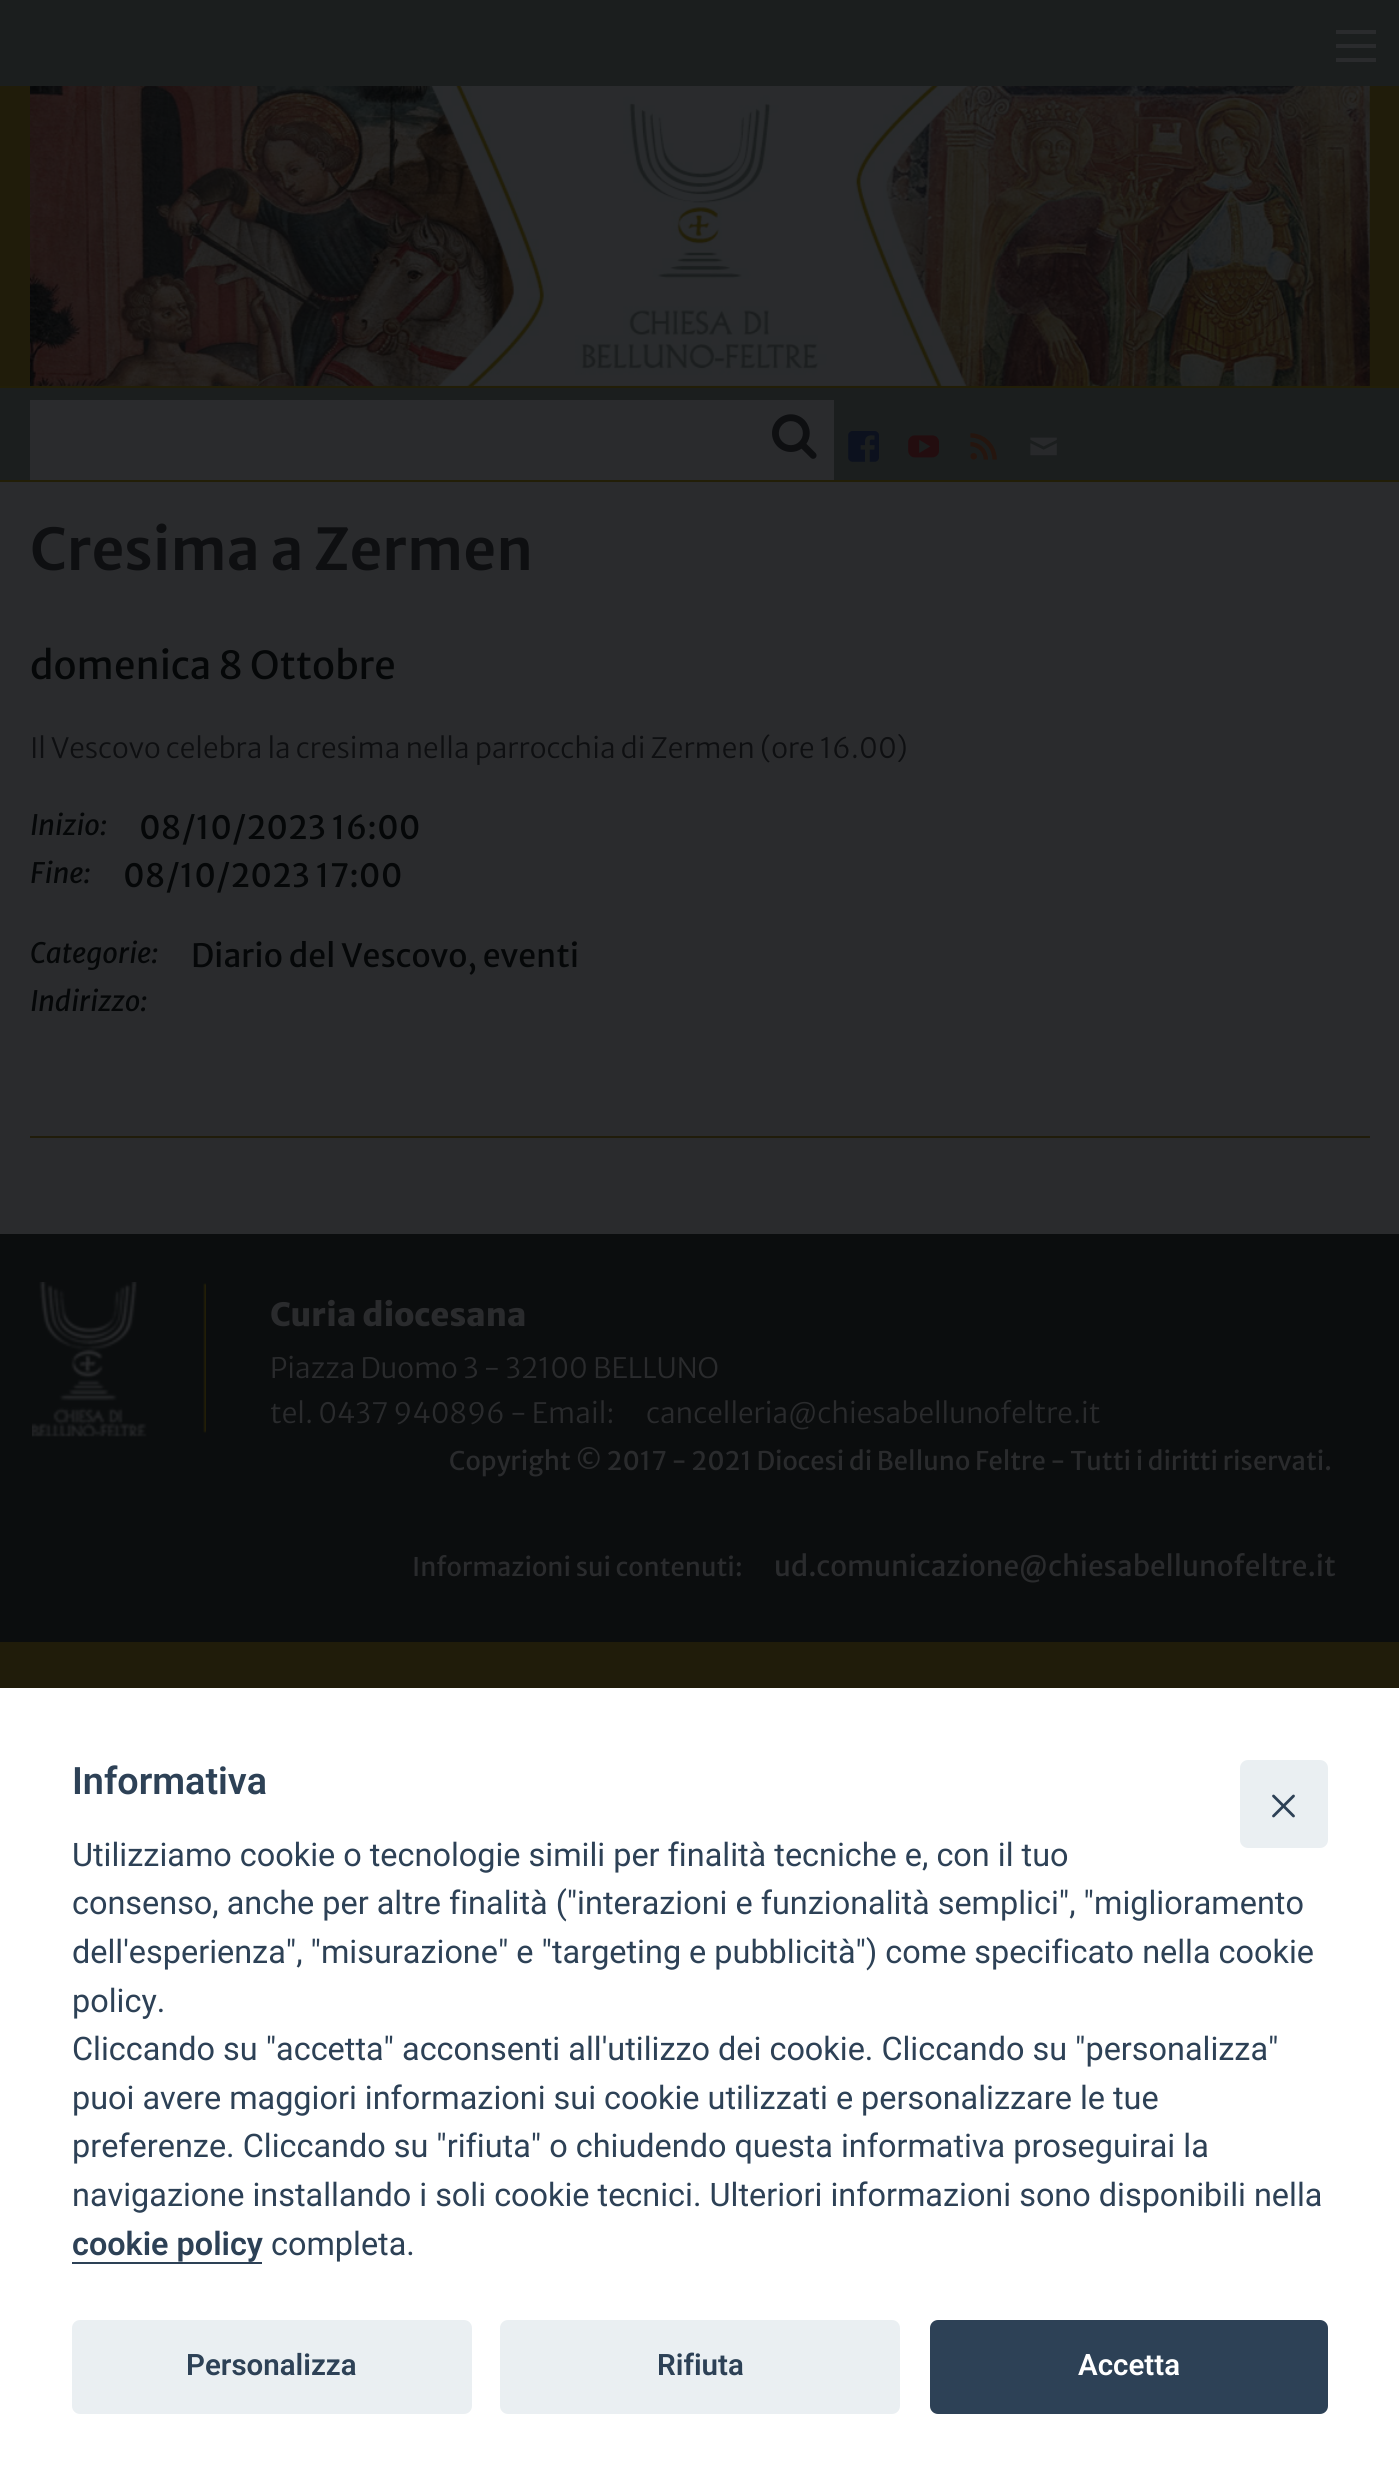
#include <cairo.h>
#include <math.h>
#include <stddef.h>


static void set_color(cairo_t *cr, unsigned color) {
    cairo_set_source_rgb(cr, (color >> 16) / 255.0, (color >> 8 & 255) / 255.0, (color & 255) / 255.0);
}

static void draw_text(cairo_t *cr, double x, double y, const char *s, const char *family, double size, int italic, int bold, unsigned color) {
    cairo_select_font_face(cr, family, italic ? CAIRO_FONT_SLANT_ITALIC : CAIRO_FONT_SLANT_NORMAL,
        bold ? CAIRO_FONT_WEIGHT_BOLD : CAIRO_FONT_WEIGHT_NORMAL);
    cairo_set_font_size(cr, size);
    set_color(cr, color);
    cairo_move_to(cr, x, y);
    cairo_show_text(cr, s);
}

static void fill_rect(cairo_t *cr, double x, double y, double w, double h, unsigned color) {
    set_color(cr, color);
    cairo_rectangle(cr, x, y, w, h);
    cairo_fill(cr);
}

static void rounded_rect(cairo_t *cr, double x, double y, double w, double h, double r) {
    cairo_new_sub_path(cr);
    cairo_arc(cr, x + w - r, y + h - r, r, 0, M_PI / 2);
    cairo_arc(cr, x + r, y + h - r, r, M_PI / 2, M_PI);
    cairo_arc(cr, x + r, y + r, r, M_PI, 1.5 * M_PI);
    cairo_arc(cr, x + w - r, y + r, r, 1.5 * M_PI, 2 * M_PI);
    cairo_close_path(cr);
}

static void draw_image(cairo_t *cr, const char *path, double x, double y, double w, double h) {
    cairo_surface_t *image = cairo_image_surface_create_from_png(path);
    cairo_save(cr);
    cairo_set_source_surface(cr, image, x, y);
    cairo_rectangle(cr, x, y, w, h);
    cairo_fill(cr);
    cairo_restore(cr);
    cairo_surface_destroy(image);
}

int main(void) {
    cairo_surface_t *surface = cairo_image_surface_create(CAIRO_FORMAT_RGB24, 1399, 2486);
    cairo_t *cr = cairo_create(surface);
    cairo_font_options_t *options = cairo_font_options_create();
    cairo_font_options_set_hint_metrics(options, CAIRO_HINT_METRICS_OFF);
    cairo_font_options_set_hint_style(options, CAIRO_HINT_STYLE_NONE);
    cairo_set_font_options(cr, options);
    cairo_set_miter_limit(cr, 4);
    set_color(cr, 0x201C0A);
    cairo_paint(cr);
    fill_rect(cr, 0, 0, 1399, 86, 0x1B1E1E);
    fill_rect(cr, 1336, 58, 40, 4, 0x2A2B2D);
    fill_rect(cr, 1336, 44, 40, 4, 0x2A2B2D);
    fill_rect(cr, 1336, 30, 40, 4, 0x2A2B2D);
    draw_image(cr, "assets/img1.png", 30, 86, 1340, 300);
    fill_rect(cr, 0, 388, 1399, 92, 0x1B1E1E);
    fill_rect(cr, 0, 386, 1399, 2, 0x221E07);
    fill_rect(cr, 0, 480, 1399, 2, 0x221E07);
    fill_rect(cr, 30, 400, 804, 80, 0x2A2B2D);
    draw_image(cr, "assets/img2.png", 772, 414, 45, 45);
    draw_image(cr, "assets/img3.png", 848, 431, 31, 31);
    draw_image(cr, "assets/img4.png", 908, 435, 31, 23);
    draw_image(cr, "assets/img5.png", 970, 433, 27, 27);
    draw_image(cr, "assets/img6.png", 1030, 437, 27, 19);
    fill_rect(cr, 0, 482, 1399, 752, 0x2A2B2D);
    fill_rect(cr, 30, 1136, 1340, 2, 0x201C0A);
    draw_text(cr, 30, 570, "Cresima a Zermen", "Merriweather Sans SemiBold", 57.5, 0, 0, 0x0E0F11);
    draw_text(cr, 30, 679, "domenica 8 Ottobre", "Merriweather Sans", 38.5, 0, 0, 0x050708);
    draw_text(cr, 30, 758, "Il Vescovo celebra la cresima nella parrocchia di Zermen (ore 16.00)", "Merriweather Sans Light", 28, 0, 0, 0x0E0F11);
    draw_text(cr, 30, 835, "Inizio:", "Merriweather Sans", 28, 1, 0, 0x050708);
    draw_text(cr, 139, 839, "08/10/2023 16:00", "Merriweather Sans", 32, 0, 0, 0x050708);
    draw_text(cr, 30, 883, "Fine:", "Merriweather Sans", 28, 1, 0, 0x050708);
    draw_text(cr, 123, 887, "08/10/2023 17:00", "Merriweather Sans", 32, 0, 0, 0x050708);
    draw_text(cr, 30, 963, "Categorie:", "Merriweather Sans", 28, 1, 0, 0x050708);
    draw_text(cr, 191, 967, "Diario del Vescovo, eventi", "Merriweather Sans", 32, 0, 0, 0x050708);
    draw_text(cr, 30, 1011, "Indirizzo:", "Merriweather Sans", 28, 1, 0, 0x050708);
    fill_rect(cr, 0, 1234, 1399, 408, 0x0B0D0E);
    draw_image(cr, "assets/img7.png", 32, 1282, 174, 155);
    draw_text(cr, 270, 1326, "Curia diocesana", "Merriweather Sans ExtraBold", 32, 0, 0, 0x2A2B2D);
    draw_text(cr, 270, 1378, "Piazza Duomo 3 - 32100 BELLUNO", "Merriweather Sans Light", 28, 0, 0, 0x2A2B2D);
    draw_text(cr, 270, 1423, "tel. 0437 940896 - Email:", "Merriweather Sans Light", 28, 0, 0, 0x2A2B2D);
    draw_text(cr, 646, 1423, "cancelleria@chiesabellunofeltre.it", "Merriweather Sans Light", 28, 0, 0, 0x2A2B2D);
    draw_text(cr, 449, 1470, "Copyright © 2017 - 2021 Diocesi di Belluno Feltre - Tutti i diritti riservati.", "Merriweather Sans", 25.6, 0, 0, 0x2A2B2D);
    draw_text(cr, 412, 1576, "Informazioni sui contenuti:", "Merriweather Sans", 25.6, 0, 0, 0x2A2B2D);
    draw_text(cr, 774, 1576, "ud.comunicazione@chiesabellunofeltre.it", "Merriweather Sans", 28, 0, 0, 0x2A2B2D);
    fill_rect(cr, 0, 1688, 1399, 798, 0xFFFFFF);
    set_color(cr, 0xEAEFF2);
    rounded_rect(cr, 1240, 1760, 88, 88, 8);
    cairo_fill(cr);
    set_color(cr, 0x2D4156);
    cairo_new_path(cr);
    cairo_move_to(cr, 1294.5, 1795);
    cairo_curve_to(cr, 1295, 1795.5, 1295, 1796.5, 1294.5, 1797);
    cairo_line_to(cr, 1274.5, 1817);
    cairo_curve_to(cr, 1274, 1817.5, 1273, 1817.5, 1272.5, 1817);
    cairo_curve_to(cr, 1272, 1816.5, 1272, 1815.5, 1272.5, 1815);
    cairo_line_to(cr, 1292.5, 1795);
    cairo_curve_to(cr, 1293, 1794.5, 1294, 1794.5, 1294.5, 1795);
    cairo_close_path(cr);
    cairo_fill(cr);
    cairo_new_path(cr);
    cairo_move_to(cr, 1272.5, 1795);
    cairo_curve_to(cr, 1273, 1794.5, 1274, 1794.5, 1274.5, 1795);
    cairo_line_to(cr, 1294.5, 1815);
    cairo_curve_to(cr, 1295, 1815.5, 1295, 1816.5, 1294.5, 1817);
    cairo_curve_to(cr, 1294, 1817.5, 1293, 1817.5, 1292.5, 1817);
    cairo_line_to(cr, 1272.5, 1797);
    cairo_curve_to(cr, 1272, 1796.5, 1272, 1795.5, 1272.5, 1795);
    cairo_close_path(cr);
    cairo_fill(cr);
    draw_text(cr, 72, 1794, "Informativa", "Roboto SemiBold", 37.75, 0, 0, 0x2D4156);
    draw_text(cr, 72, 1866, "Utilizziamo cookie o tecnologie simili per finalità tecniche e, con il tuo", "Roboto", 32.4, 0, 0, 0x2D4156);
    draw_text(cr, 72, 1914, "consenso, anche per altre finalità (\"interazioni e funzionalità semplici\", \"miglioramento", "Roboto", 32.4, 0, 0, 0x2D4156);
    draw_text(cr, 72, 1963, "dell'esperienza\", \"misurazione\" e \"targeting e pubblicità\") come specificato nella cookie", "Roboto", 32.4, 0, 0, 0x2D4156);
    draw_text(cr, 72, 2012, "policy.", "Roboto", 32.4, 0, 0, 0x2D4156);
    draw_text(cr, 72, 2060, "Cliccando su \"accetta\" acconsenti all'utilizzo dei cookie. Cliccando su \"personalizza\"", "Roboto", 32.4, 0, 0, 0x2D4156);
    draw_text(cr, 72, 2109, "puoi avere maggiori informazioni sui cookie utilizzati e personalizzare le tue", "Roboto", 32.4, 0, 0, 0x2D4156);
    draw_text(cr, 72, 2157, "preferenze. Cliccando su \"rifiuta\" o chiudendo questa informativa proseguirai la", "Roboto", 32.4, 0, 0, 0x2D4156);
    draw_text(cr, 72, 2206, "navigazione installando i soli cookie tecnici. Ulteriori informazioni sono disponibili nella", "Roboto", 32.4, 0, 0, 0x2D4156);
    draw_text(cr, 72, 2255, "cookie policy", "Roboto SemiBold", 32.4, 0, 0, 0x2D4156);
    fill_rect(cr, 72, 2262, 190, 2, 0x2D4156);
    draw_text(cr, 271, 2255, "completa.", "Roboto", 32.4, 0, 0, 0x2D4156);
    set_color(cr, 0xEAEFF2);
    rounded_rect(cr, 72, 2320, 400, 94, 8);
    cairo_fill(cr);
    draw_text(cr, 186, 2375, "Personalizza", "Roboto SemiBold", 29.5, 0, 0, 0x2D4156);
    set_color(cr, 0xEAEFF2);
    rounded_rect(cr, 500, 2320, 400, 94, 8);
    cairo_fill(cr);
    draw_text(cr, 657, 2375, "Rifiuta", "Roboto SemiBold", 29.5, 0, 0, 0x2D4156);
    rounded_rect(cr, 930, 2320, 398, 94, 8);
    cairo_fill(cr);
    draw_text(cr, 1078, 2375, "Accetta", "Roboto SemiBold", 29.5, 0, 0, 0xFFFFFF);
    cairo_surface_write_to_png(surface, "output.png");
    cairo_font_options_destroy(options);
    cairo_destroy(cr);
    cairo_surface_destroy(surface);
    return 0;
}
